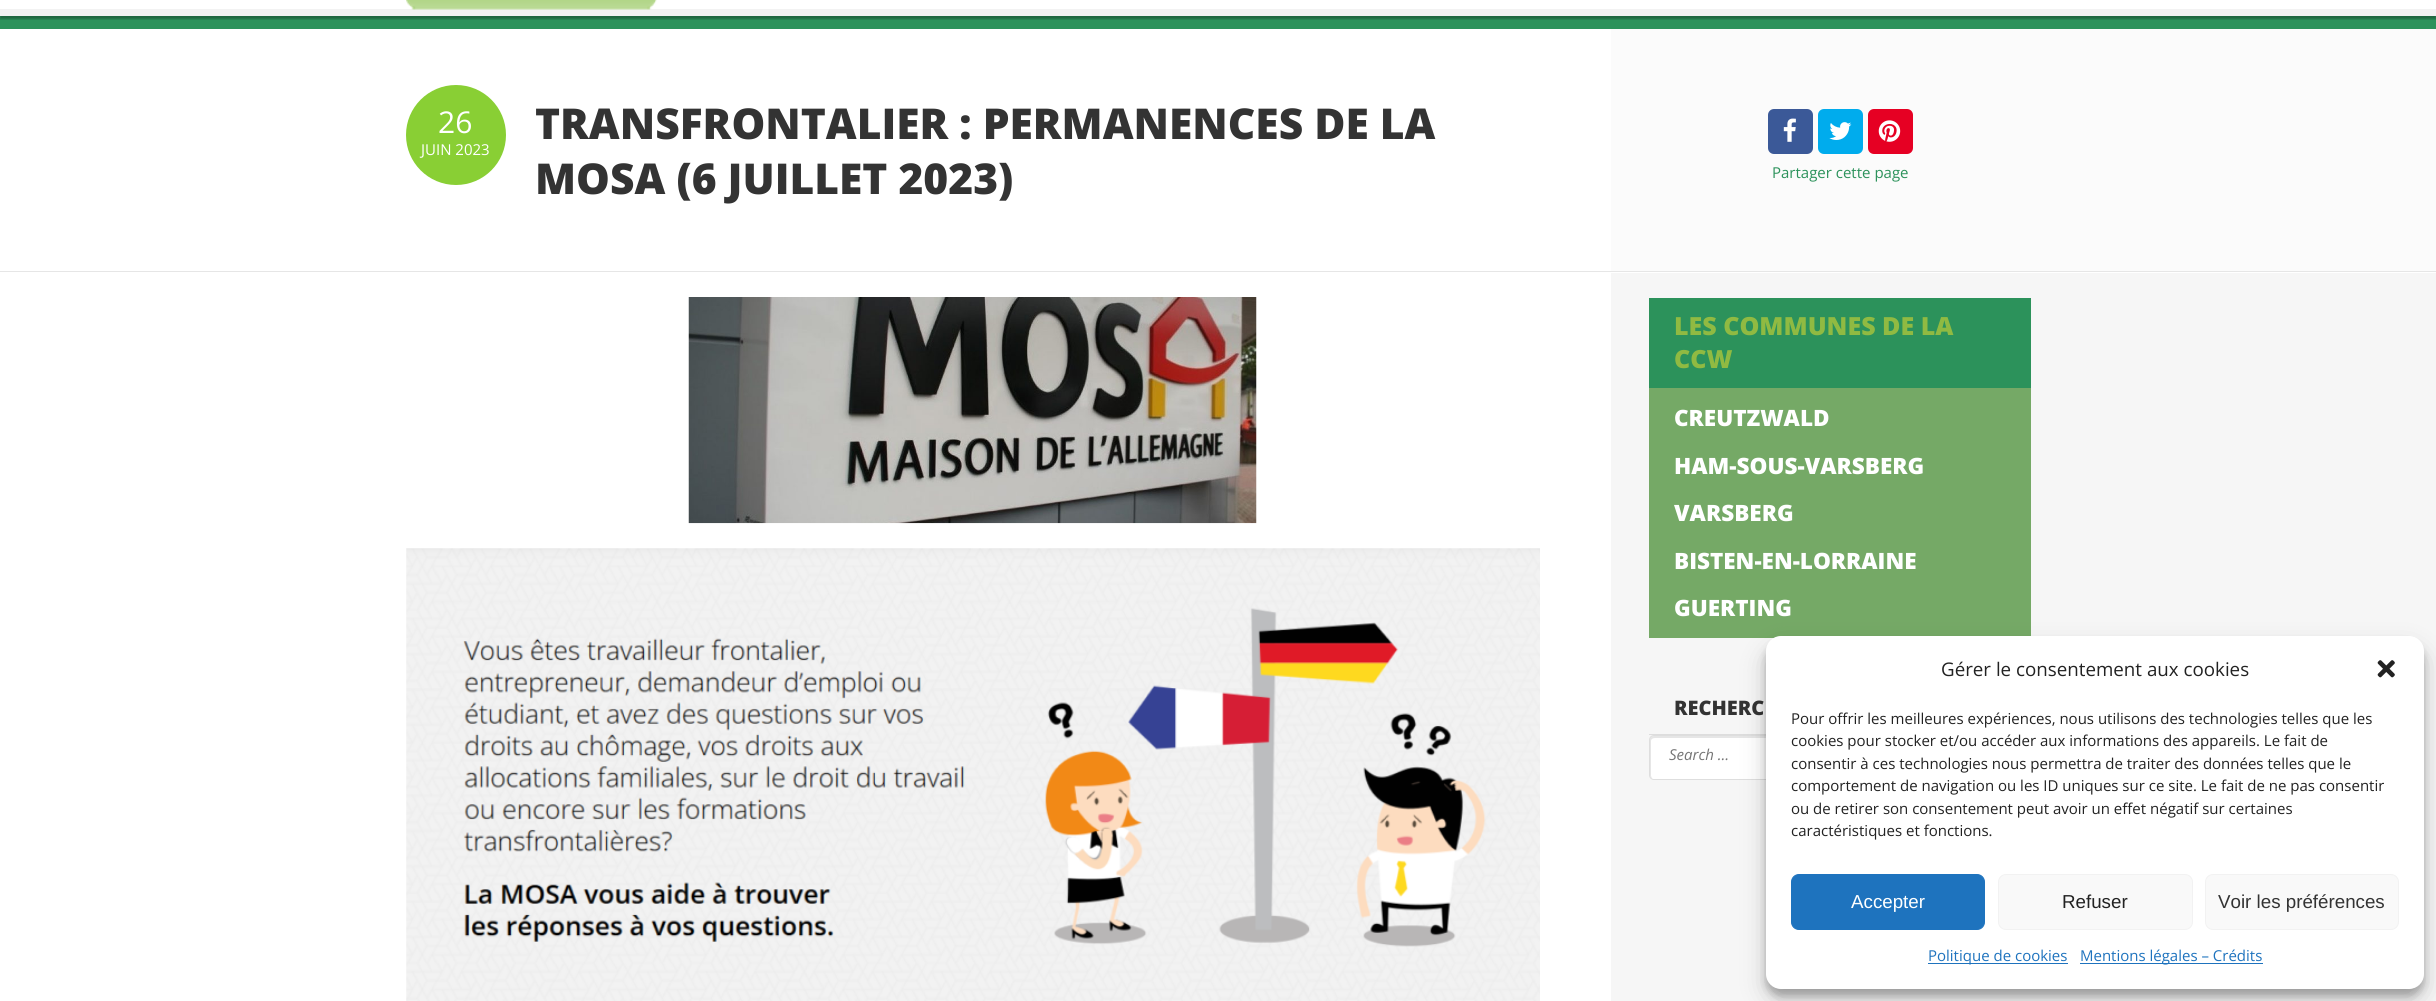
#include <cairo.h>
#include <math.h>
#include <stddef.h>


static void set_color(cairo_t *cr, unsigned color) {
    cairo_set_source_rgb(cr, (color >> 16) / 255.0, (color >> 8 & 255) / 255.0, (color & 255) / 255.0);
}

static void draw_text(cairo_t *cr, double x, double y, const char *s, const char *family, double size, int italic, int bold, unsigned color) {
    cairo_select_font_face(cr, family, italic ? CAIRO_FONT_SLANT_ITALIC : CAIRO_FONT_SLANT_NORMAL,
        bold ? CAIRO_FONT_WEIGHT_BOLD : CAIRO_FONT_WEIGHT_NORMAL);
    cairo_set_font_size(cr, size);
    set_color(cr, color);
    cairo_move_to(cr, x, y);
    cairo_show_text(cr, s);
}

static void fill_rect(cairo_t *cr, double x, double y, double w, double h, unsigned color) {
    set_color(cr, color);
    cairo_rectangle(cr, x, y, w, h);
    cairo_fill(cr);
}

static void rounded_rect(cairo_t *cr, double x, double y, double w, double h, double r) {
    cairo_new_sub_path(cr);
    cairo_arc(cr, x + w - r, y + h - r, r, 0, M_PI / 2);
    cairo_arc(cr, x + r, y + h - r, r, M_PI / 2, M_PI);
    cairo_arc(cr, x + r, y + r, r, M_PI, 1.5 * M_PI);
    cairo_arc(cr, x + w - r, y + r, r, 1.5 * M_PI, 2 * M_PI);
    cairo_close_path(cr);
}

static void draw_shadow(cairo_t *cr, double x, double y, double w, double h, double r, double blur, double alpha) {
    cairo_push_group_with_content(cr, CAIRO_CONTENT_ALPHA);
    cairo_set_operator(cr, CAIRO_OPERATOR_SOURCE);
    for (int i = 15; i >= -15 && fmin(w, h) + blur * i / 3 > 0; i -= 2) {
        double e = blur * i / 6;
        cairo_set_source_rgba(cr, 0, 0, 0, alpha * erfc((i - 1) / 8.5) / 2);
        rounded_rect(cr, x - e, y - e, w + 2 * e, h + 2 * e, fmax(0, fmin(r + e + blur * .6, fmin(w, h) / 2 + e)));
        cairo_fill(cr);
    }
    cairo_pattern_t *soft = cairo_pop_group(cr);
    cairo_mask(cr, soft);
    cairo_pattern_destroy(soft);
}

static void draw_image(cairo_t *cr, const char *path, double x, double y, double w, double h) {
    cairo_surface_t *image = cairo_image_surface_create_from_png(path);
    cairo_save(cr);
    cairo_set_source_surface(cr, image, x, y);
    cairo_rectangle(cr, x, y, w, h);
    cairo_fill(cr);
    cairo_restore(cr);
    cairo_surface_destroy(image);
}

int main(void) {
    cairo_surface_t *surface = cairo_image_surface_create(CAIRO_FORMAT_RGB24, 2436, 1001);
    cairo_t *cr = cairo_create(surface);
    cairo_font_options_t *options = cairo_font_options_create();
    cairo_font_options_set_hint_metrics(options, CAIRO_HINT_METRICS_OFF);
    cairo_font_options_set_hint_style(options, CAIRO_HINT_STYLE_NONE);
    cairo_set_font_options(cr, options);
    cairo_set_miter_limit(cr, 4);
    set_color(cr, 0xFFFFFF);
    cairo_paint(cr);
    fill_rect(cr, 0, 16, 2436, 13, 0x2C925B);
    cairo_save(cr);
    cairo_rectangle(cr, 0, 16, 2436, 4);
    cairo_clip(cr);
    set_color(cr, 0x000000);
    draw_shadow(cr, 0, -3, 2436, 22, 0, 1, 0.3);
    cairo_restore(cr);
    fill_rect(cr, 0, 9, 2436, 7, 0xF2F2F2);
    draw_image(cr, "assets/img1.png", 406, 0, 251, 10);
    fill_rect(cr, 0, 271, 2436, 1, 0xE6E6E6);
    set_color(cr, 0x89CF34);
    cairo_arc(cr, 456, 135, 50, 0, 2 * M_PI);
    cairo_fill(cr);
    draw_text(cr, 438, 133, "26", "Open Sans", 30, 0, 0, 0xFFFFFF);
    draw_text(cr, 421, 155, "JUIN 2023", "Open Sans", 15, 0, 0, 0xFFFFFF);
    draw_text(cr, 535, 139, "TRANSFRONTALIER : PERMANENCES DE LA", "Open Sans ExtraBold", 42.5, 0, 0, 0x333333);
    draw_text(cr, 535, 194, "MOSA (6 JUILLET 2023)", "Open Sans ExtraBold", 42.5, 0, 0, 0x333333);
    fill_rect(cr, 1611, 29, 825, 242, 0xFBFBFB);
    set_color(cr, 0x3B5998);
    rounded_rect(cr, 1768, 109, 45, 45, 6);
    cairo_fill(cr);
    draw_image(cr, "assets/img2.png", 1783, 118, 13, 24);
    set_color(cr, 0x00ACED);
    rounded_rect(cr, 1818, 109, 45, 45, 6);
    cairo_fill(cr);
    draw_image(cr, "assets/img3.png", 1829, 122, 23, 18);
    set_color(cr, 0xE60023);
    rounded_rect(cr, 1868, 109, 45, 45, 6);
    cairo_fill(cr);
    draw_image(cr, "assets/img4.png", 1878, 120, 23, 22);
    draw_text(cr, 1772, 178, "Partager cette page", "Open Sans", 15, 0, 0, 0x2C925B);
    draw_image(cr, "assets/img5.png", 688, 297, 569, 227);
    draw_image(cr, "assets/img6.png", 406, 548, 1134, 453);
    fill_rect(cr, 1611, 273, 825, 728, 0xF6F6F6);
    fill_rect(cr, 1649, 298, 382, 90, 0x2C925B);
    draw_text(cr, 1674, 335, "LES COMMUNES DE LA", "Open Sans ExtraBold", 25, 0, 0, 0x90BA42);
    draw_text(cr, 1674, 368, "CCW", "Open Sans ExtraBold", 25, 0, 0, 0x90BA42);
    fill_rect(cr, 1649, 388, 382, 250, 0x75A966);
    draw_text(cr, 1674, 426, "CREUTZWALD", "Open Sans ExtraBold", 22.5, 0, 0, 0xFFFFFF);
    draw_text(cr, 1674, 474, "HAM-SOUS-VARSBERG", "Open Sans ExtraBold", 22.5, 0, 0, 0xFFFFFF);
    draw_text(cr, 1674, 521, "VARSBERG", "Open Sans ExtraBold", 22.5, 0, 0, 0xFFFFFF);
    draw_text(cr, 1674, 569, "BISTEN-EN-LORRAINE", "Open Sans ExtraBold", 22.5, 0, 0, 0xFFFFFF);
    draw_text(cr, 1674, 616, "GUERTING", "Open Sans ExtraBold", 22.5, 0, 0, 0xFFFFFF);
    fill_rect(cr, 1649, 734, 117, 1, 0xDDDDDD);
    draw_text(cr, 1674, 715, "RECHERC", "Open Sans ExtraBold", 20, 0, 0, 0x333333);
    set_color(cr, 0xFFFFFF);
    rounded_rect(cr, 1650, 736, 380, 43, 4);
    cairo_fill(cr);
    cairo_set_source_rgba(cr, 0, 0, 0, 0.1);
    cairo_new_path(cr);
    cairo_move_to(cr, 1655, 738);
    cairo_line_to(cr, 2030, 738);
    cairo_curve_to(cr, 2029, 737, 2028, 736, 2026, 736);
    cairo_line_to(cr, 1654, 736);
    cairo_curve_to(cr, 1652, 736, 1650, 738, 1650, 740);
    cairo_line_to(cr, 1650, 775);
    cairo_curve_to(cr, 1650, 776, 1651, 778, 1652, 778);
    cairo_line_to(cr, 1651, 776);
    cairo_line_to(cr, 1651, 741);
    cairo_curve_to(cr, 1651, 739, 1653, 738, 1655, 738);
    cairo_close_path(cr);
    cairo_fill(cr);
    rounded_rect(cr, 1649.5, 735.5, 381, 44, 4.5);
    cairo_set_line_width(cr, 1);
    cairo_stroke(cr);
    draw_text(cr, 1669, 760, "Search …", "Open Sans", 15, 1, 0, 0x757575);
    set_color(cr, 0x000000);
    draw_shadow(cr, 1766, 644, 658, 352, 15, 4, 0.23);
    draw_shadow(cr, 1766, 649, 658, 352, 15, 12.5, 0.19);
    set_color(cr, 0xFFFFFF);
    rounded_rect(cr, 1766, 636, 658, 353, 15);
    cairo_fill(cr);
    draw_text(cr, 1941, 676, "Gérer le consentement aux cookies", "Open Sans", 18.75, 0, 0, 0x222222);
    draw_image(cr, "assets/img7.png", 2377, 660, 18, 18);
    draw_text(cr, 1791, 724, "Pour offrir les meilleures expériences, nous utilisons des technologies telles que les", "Open Sans", 15, 0, 0, 0x222222);
    draw_text(cr, 1791, 746, "cookies pour stocker et/ou accéder aux informations des appareils. Le fait de", "Open Sans", 15, 0, 0, 0x222222);
    draw_text(cr, 1791, 769, "consentir à ces technologies nous permettra de traiter des données telles que le", "Open Sans", 15, 0, 0, 0x222222);
    draw_text(cr, 1791, 791, "comportement de navigation ou les ID uniques sur ce site. Le fait de ne pas consentir", "Open Sans", 15, 0, 0, 0x222222);
    draw_text(cr, 1791, 814, "ou de retirer son consentement peut avoir un effet négatif sur certaines", "Open Sans", 15, 0, 0, 0x222222);
    draw_text(cr, 1791, 836, "caractéristiques et fonctions.", "Open Sans", 15, 0, 0, 0x222222);
    set_color(cr, 0x1E73BE);
    rounded_rect(cr, 1791.5, 874.5, 193, 55, 7.5);
    cairo_fill_preserve(cr);
    cairo_stroke(cr);
    draw_text(cr, 1851, 908, "Accepter", "Liberation Sans", 18.75, 0, 0, 0xFFFFFF);
    set_color(cr, 0xF9F9F9);
    rounded_rect(cr, 1998.5, 874.5, 194, 55, 7.5);
    cairo_fill_preserve(cr);
    set_color(cr, 0xF2F2F2);
    cairo_stroke(cr);
    draw_text(cr, 2062, 908, "Refuser", "Liberation Sans", 18.75, 0, 0, 0x222222);
    set_color(cr, 0xF9F9F9);
    rounded_rect(cr, 2205.5, 874.5, 193, 55, 7.5);
    cairo_fill_preserve(cr);
    set_color(cr, 0xF2F2F2);
    cairo_stroke(cr);
    draw_text(cr, 2218, 908, "Voir les préférences", "Liberation Sans", 18.75, 0, 0, 0x333333);
    fill_rect(cr, 1928, 963, 140, 1, 0x1E73BE);
    draw_text(cr, 1928, 961, "Politique de cookies", "Open Sans", 15, 0, 0, 0x1E73BE);
    fill_rect(cr, 2080, 963, 183, 1, 0x1E73BE);
    draw_text(cr, 2080, 961, "Mentions légales – Crédits", "Open Sans", 15, 0, 0, 0x1E73BE);
    cairo_surface_write_to_png(surface, "output.png");
    cairo_font_options_destroy(options);
    cairo_destroy(cr);
    cairo_surface_destroy(surface);
    return 0;
}
